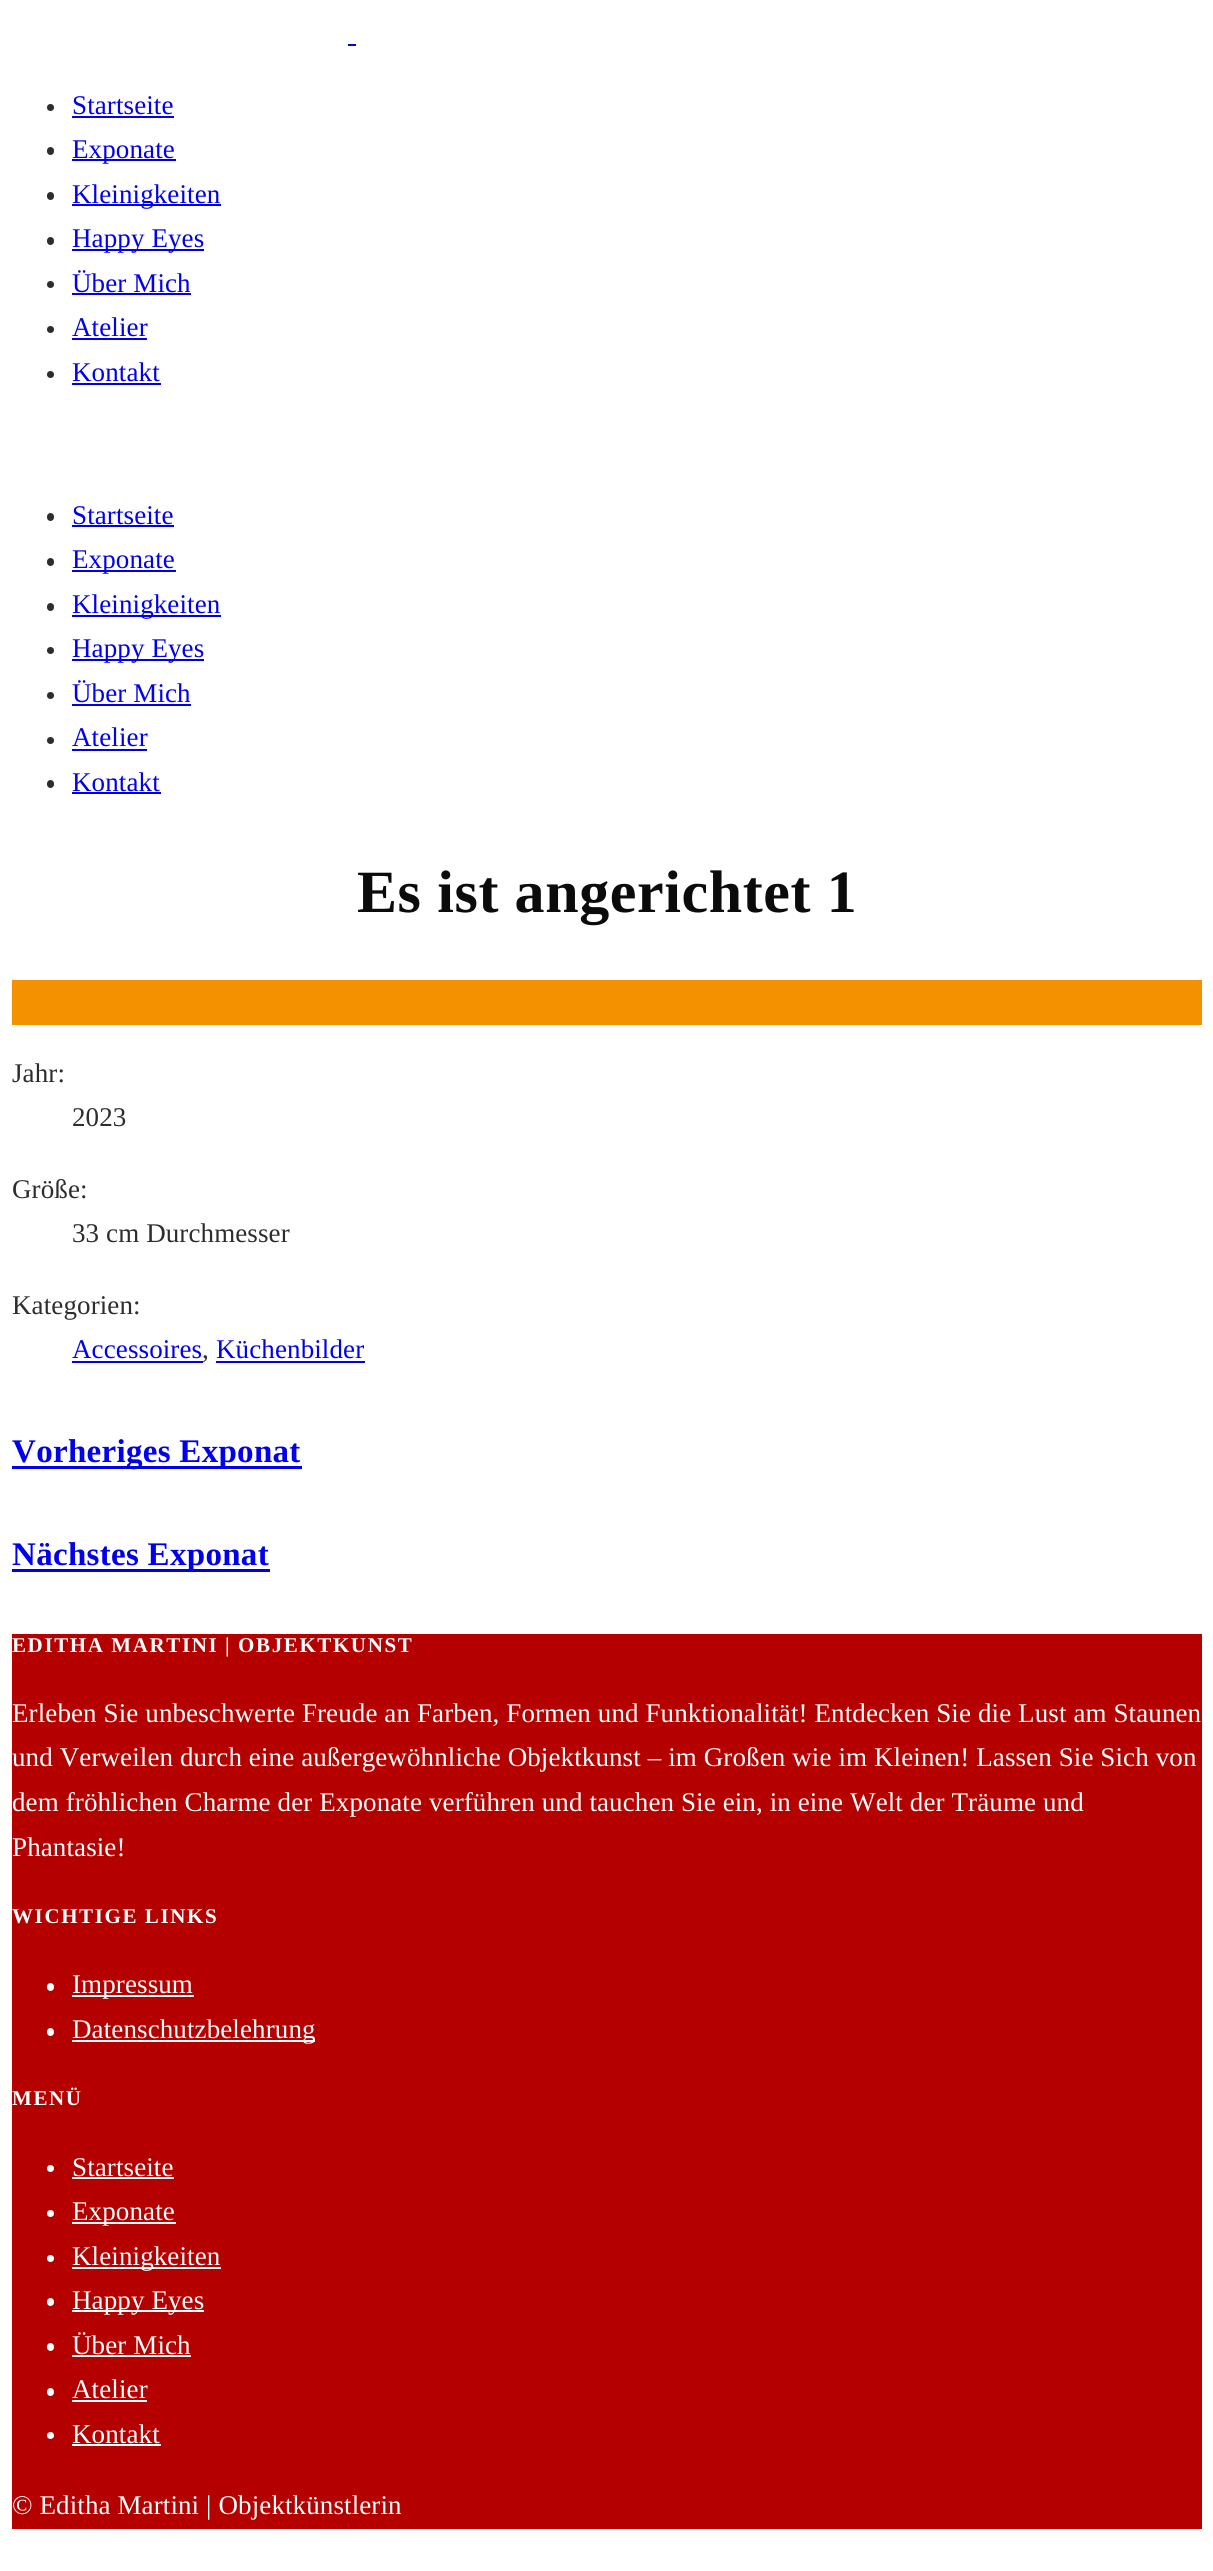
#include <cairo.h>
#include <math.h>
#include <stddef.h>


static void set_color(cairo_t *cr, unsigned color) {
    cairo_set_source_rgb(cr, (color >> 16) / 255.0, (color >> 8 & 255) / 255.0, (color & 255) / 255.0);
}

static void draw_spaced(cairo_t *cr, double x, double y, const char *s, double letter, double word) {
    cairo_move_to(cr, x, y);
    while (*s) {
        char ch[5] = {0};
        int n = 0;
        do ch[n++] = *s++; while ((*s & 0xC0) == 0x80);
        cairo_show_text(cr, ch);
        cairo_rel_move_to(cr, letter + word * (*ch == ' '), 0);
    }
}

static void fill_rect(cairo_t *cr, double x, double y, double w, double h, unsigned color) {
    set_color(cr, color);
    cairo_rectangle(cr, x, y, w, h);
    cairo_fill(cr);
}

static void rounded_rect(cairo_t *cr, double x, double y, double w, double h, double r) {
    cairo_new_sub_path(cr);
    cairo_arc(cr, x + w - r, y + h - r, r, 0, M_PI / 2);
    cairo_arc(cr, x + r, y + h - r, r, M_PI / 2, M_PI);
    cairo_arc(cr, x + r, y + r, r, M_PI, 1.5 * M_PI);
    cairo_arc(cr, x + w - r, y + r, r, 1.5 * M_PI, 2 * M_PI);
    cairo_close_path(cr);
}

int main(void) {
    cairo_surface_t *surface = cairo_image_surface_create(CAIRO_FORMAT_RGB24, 1213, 2571);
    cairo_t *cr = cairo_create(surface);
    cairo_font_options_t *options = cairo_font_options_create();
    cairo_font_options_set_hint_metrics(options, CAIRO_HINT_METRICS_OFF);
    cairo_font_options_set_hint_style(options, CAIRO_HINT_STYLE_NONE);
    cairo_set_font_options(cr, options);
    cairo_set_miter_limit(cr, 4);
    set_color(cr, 0xFFFFFF);
    cairo_paint(cr);
    fill_rect(cr, 348, 44, 8, 2, 0x0000EE);
    set_color(cr, 0x2D2D2D);
    cairo_arc(cr, 50.5, 107.5, 3.5, 0, 2 * M_PI);
    cairo_fill(cr);
    cairo_select_font_face(cr, "Liberation Serif", CAIRO_FONT_SLANT_NORMAL, CAIRO_FONT_WEIGHT_NORMAL);
    cairo_set_font_size(cr, 27);
    set_color(cr, 0x0000EE);
    draw_spaced(cr, 72, 114, "Startseite", 0.11, 0);
    fill_rect(cr, 72, 116, 102, 2, 0x0000EE);
    set_color(cr, 0x2D2D2D);
    rounded_rect(cr, 47, 147, 7, 8, 3.5);
    cairo_fill(cr);
    fill_rect(cr, 72, 159, 104, 2, 0x0000EE);
    draw_spaced(cr, 72, 158, "Exponate", 0.11, 0);
    set_color(cr, 0x2D2D2D);
    rounded_rect(cr, 47, 192, 7, 8, 3.5);
    cairo_fill(cr);
    fill_rect(cr, 72, 204, 149, 2, 0x0000EE);
    draw_spaced(cr, 72, 203, "Kleinigkeiten", 0.11, 0);
    set_color(cr, 0x2D2D2D);
    rounded_rect(cr, 47, 237, 7, 8, 3.5);
    cairo_fill(cr);
    fill_rect(cr, 72, 249, 132, 2, 0x0000EE);
    draw_spaced(cr, 72, 247, "Happy Eyes", 0.11, 0);
    set_color(cr, 0x2D2D2D);
    cairo_new_path(cr);
    cairo_arc(cr, 50.5, 284.5, 3.5, 0, 2 * M_PI);
    cairo_fill(cr);
    set_color(cr, 0x0000EE);
    draw_spaced(cr, 72, 292, "Über Mich", 0.11, 0);
    fill_rect(cr, 72, 293, 119, 2, 0x0000EE);
    set_color(cr, 0x2D2D2D);
    cairo_new_path(cr);
    cairo_arc(cr, 50.5, 329.5, 3.5, 0, 2 * M_PI);
    cairo_fill(cr);
    set_color(cr, 0x0000EE);
    draw_spaced(cr, 72, 336, "Atelier", 0.11, 0);
    fill_rect(cr, 72, 338, 75, 2, 0x0000EE);
    set_color(cr, 0x2D2D2D);
    cairo_new_path(cr);
    cairo_arc(cr, 50.5, 374.5, 3.5, 0, 2 * M_PI);
    cairo_fill(cr);
    set_color(cr, 0x0000EE);
    draw_spaced(cr, 72, 381, "Kontakt", 0.11, 0);
    fill_rect(cr, 72, 383, 89, 2, 0x0000EE);
    set_color(cr, 0x2D2D2D);
    rounded_rect(cr, 47, 513, 7, 8, 3.5);
    cairo_fill(cr);
    set_color(cr, 0x0000EE);
    draw_spaced(cr, 72, 524, "Startseite", 0.11, 0);
    fill_rect(cr, 72, 525, 102, 2, 0x0000EE);
    set_color(cr, 0x2D2D2D);
    rounded_rect(cr, 47, 558, 7, 8, 3.5);
    cairo_fill(cr);
    fill_rect(cr, 72, 570, 104, 2, 0x0000EE);
    draw_spaced(cr, 72, 568, "Exponate", 0.11, 0);
    set_color(cr, 0x2D2D2D);
    rounded_rect(cr, 47, 603, 7, 8, 3.5);
    cairo_fill(cr);
    fill_rect(cr, 72, 615, 149, 2, 0x0000EE);
    draw_spaced(cr, 72, 613, "Kleinigkeiten", 0.11, 0);
    set_color(cr, 0x2D2D2D);
    cairo_new_path(cr);
    cairo_arc(cr, 50.5, 650.5, 3.5, 0, 2 * M_PI);
    cairo_fill(cr);
    fill_rect(cr, 72, 659, 132, 2, 0x0000EE);
    draw_spaced(cr, 72, 657, "Happy Eyes", 0.11, 0);
    set_color(cr, 0x2D2D2D);
    cairo_new_path(cr);
    cairo_arc(cr, 50.5, 695.5, 3.5, 0, 2 * M_PI);
    cairo_fill(cr);
    set_color(cr, 0x0000EE);
    draw_spaced(cr, 72, 702, "Über Mich", 0.11, 0);
    fill_rect(cr, 72, 704, 119, 2, 0x0000EE);
    set_color(cr, 0x2D2D2D);
    cairo_new_path(cr);
    cairo_arc(cr, 50.5, 740.5, 3.5, 0, 2 * M_PI);
    cairo_fill(cr);
    set_color(cr, 0x0000EE);
    draw_spaced(cr, 72, 746, "Atelier", 0.11, 0);
    fill_rect(cr, 72, 749, 75, 2, 0x0000EE);
    set_color(cr, 0x2D2D2D);
    rounded_rect(cr, 47, 780, 7, 8, 3.5);
    cairo_fill(cr);
    set_color(cr, 0x0000EE);
    draw_spaced(cr, 72, 791, "Kontakt", 0.11, 0);
    fill_rect(cr, 72, 792, 89, 2, 0x0000EE);
    cairo_select_font_face(cr, "Liberation Serif", CAIRO_FONT_SLANT_NORMAL, CAIRO_FONT_WEIGHT_BOLD);
    cairo_set_font_size(cr, 60);
    set_color(cr, 0x0B0B0B);
    draw_spaced(cr, 357, 912, "Es ist angerichtet 1", 0.6, 0);
    fill_rect(cr, 12, 980, 1190, 45, 0xF39100);
    cairo_select_font_face(cr, "Liberation Serif", CAIRO_FONT_SLANT_NORMAL, CAIRO_FONT_WEIGHT_NORMAL);
    cairo_set_font_size(cr, 27);
    set_color(cr, 0x2D2D2D);
    draw_spaced(cr, 12, 1082, "Jahr:", 0.11, 0);
    draw_spaced(cr, 72, 1126, "2023", 0.11, 0);
    draw_spaced(cr, 12, 1198, "Größe:", 0.11, 0);
    draw_spaced(cr, 72, 1242, "33 cm Durchmesser", 0.11, 0);
    draw_spaced(cr, 12, 1314, "Kategorien:", 0.11, 0);
    set_color(cr, 0x0000EE);
    draw_spaced(cr, 72, 1358, "Accessoires", 0.11, 0);
    fill_rect(cr, 72, 1361, 131, 2, 0x0000EE);
    set_color(cr, 0x2D2D2D);
    draw_spaced(cr, 202, 1358, ",", 0.11, 0);
    set_color(cr, 0x0000EE);
    draw_spaced(cr, 216, 1358, "Küchenbilder", 0.11, 0);
    fill_rect(cr, 216, 1361, 149, 2, 0x0000EE);
    fill_rect(cr, 12, 1466, 290, 3, 0x0000EE);
    cairo_select_font_face(cr, "Liberation Serif", CAIRO_FONT_SLANT_NORMAL, CAIRO_FONT_WEIGHT_BOLD);
    cairo_set_font_size(cr, 33);
    draw_spaced(cr, 12, 1462, "Vorheriges Exponat", 0.3, 0);
    fill_rect(cr, 12, 1569, 258, 3, 0x0000EE);
    draw_spaced(cr, 12, 1565, "Nächstes Exponat", 0.3, 0);
    fill_rect(cr, 12, 1634, 1190, 895, 0xB50000);
    cairo_set_font_size(cr, 21);
    set_color(cr, 0xFFFFFF);
    draw_spaced(cr, 12, 1652, "EDITHA MARTINI | OBJEKTKUNST", 1.6, 0);
    cairo_select_font_face(cr, "Liberation Serif", CAIRO_FONT_SLANT_NORMAL, CAIRO_FONT_WEIGHT_NORMAL);
    cairo_set_font_size(cr, 27);
    draw_spaced(cr, 12, 1722, "Erleben Sie unbeschwerte Freude an Farben, Formen und Funktionalität! Entdecken Sie die Lust am Staunen", 0.11, 0);
    draw_spaced(cr, 12, 1766, "und Verweilen durch eine außergewöhnliche Objektkunst – im Großen wie im Kleinen! Lassen Sie Sich von", 0.11, 0);
    draw_spaced(cr, 12, 1811, "dem fröhlichen Charme der Exponate verführen und tauchen Sie ein, in eine Welt der Träume und", 0.11, 0);
    draw_spaced(cr, 12, 1856, "Phantasie!", 0.11, 0);
    cairo_select_font_face(cr, "Liberation Serif", CAIRO_FONT_SLANT_NORMAL, CAIRO_FONT_WEIGHT_BOLD);
    cairo_set_font_size(cr, 21);
    draw_spaced(cr, 12, 1923, "WICHTIGE LINKS", 1.6, 0);
    rounded_rect(cr, 47, 1983, 7, 8, 3.5);
    cairo_fill(cr);
    fill_rect(cr, 72, 1995, 122, 2, 0xFFFFFF);
    cairo_select_font_face(cr, "Liberation Serif", CAIRO_FONT_SLANT_NORMAL, CAIRO_FONT_WEIGHT_NORMAL);
    cairo_set_font_size(cr, 27);
    draw_spaced(cr, 72, 1993, "Impressum", 0.11, 0);
    rounded_rect(cr, 47, 2028, 7, 8, 3.5);
    cairo_fill(cr);
    fill_rect(cr, 72, 2040, 243, 2, 0xFFFFFF);
    draw_spaced(cr, 72, 2038, "Datenschutzbelehrung", 0.11, 0);
    cairo_select_font_face(cr, "Liberation Serif", CAIRO_FONT_SLANT_NORMAL, CAIRO_FONT_WEIGHT_BOLD);
    cairo_set_font_size(cr, 21);
    draw_spaced(cr, 12, 2105, "MENÜ", 1.6, 0);
    cairo_new_path(cr);
    cairo_arc(cr, 50.5, 2168.5, 3.5, 0, 2 * M_PI);
    cairo_fill(cr);
    cairo_select_font_face(cr, "Liberation Serif", CAIRO_FONT_SLANT_NORMAL, CAIRO_FONT_WEIGHT_NORMAL);
    cairo_set_font_size(cr, 27);
    draw_spaced(cr, 72, 2176, "Startseite", 0.11, 0);
    fill_rect(cr, 72, 2177, 102, 2, 0xFFFFFF);
    cairo_new_path(cr);
    cairo_arc(cr, 50.5, 2213.5, 3.5, 0, 2 * M_PI);
    cairo_fill(cr);
    fill_rect(cr, 72, 2222, 104, 2, 0xFFFFFF);
    draw_spaced(cr, 72, 2220, "Exponate", 0.11, 0);
    cairo_new_path(cr);
    cairo_arc(cr, 50.5, 2258.5, 3.5, 0, 2 * M_PI);
    cairo_fill(cr);
    fill_rect(cr, 72, 2267, 149, 2, 0xFFFFFF);
    draw_spaced(cr, 72, 2265, "Kleinigkeiten", 0.11, 0);
    rounded_rect(cr, 47, 2298, 7, 8, 3.5);
    cairo_fill(cr);
    fill_rect(cr, 72, 2310, 132, 2, 0xFFFFFF);
    draw_spaced(cr, 72, 2309, "Happy Eyes", 0.11, 0);
    rounded_rect(cr, 47, 2343, 7, 8, 3.5);
    cairo_fill(cr);
    draw_spaced(cr, 72, 2354, "Über Mich", 0.11, 0);
    fill_rect(cr, 72, 2355, 119, 2, 0xFFFFFF);
    rounded_rect(cr, 47, 2388, 7, 8, 3.5);
    cairo_fill(cr);
    draw_spaced(cr, 72, 2398, "Atelier", 0.11, 0);
    fill_rect(cr, 72, 2400, 75, 2, 0xFFFFFF);
    cairo_new_path(cr);
    cairo_arc(cr, 50.5, 2435.5, 3.5, 0, 2 * M_PI);
    cairo_fill(cr);
    draw_spaced(cr, 72, 2443, "Kontakt", 0.11, 0);
    fill_rect(cr, 72, 2444, 89, 2, 0xFFFFFF);
    draw_spaced(cr, 12, 2514, "© Editha Martini | Objektkünstlerin", 0.11, 0);
    cairo_surface_write_to_png(surface, "output.png");
    cairo_font_options_destroy(options);
    cairo_destroy(cr);
    cairo_surface_destroy(surface);
    return 0;
}
